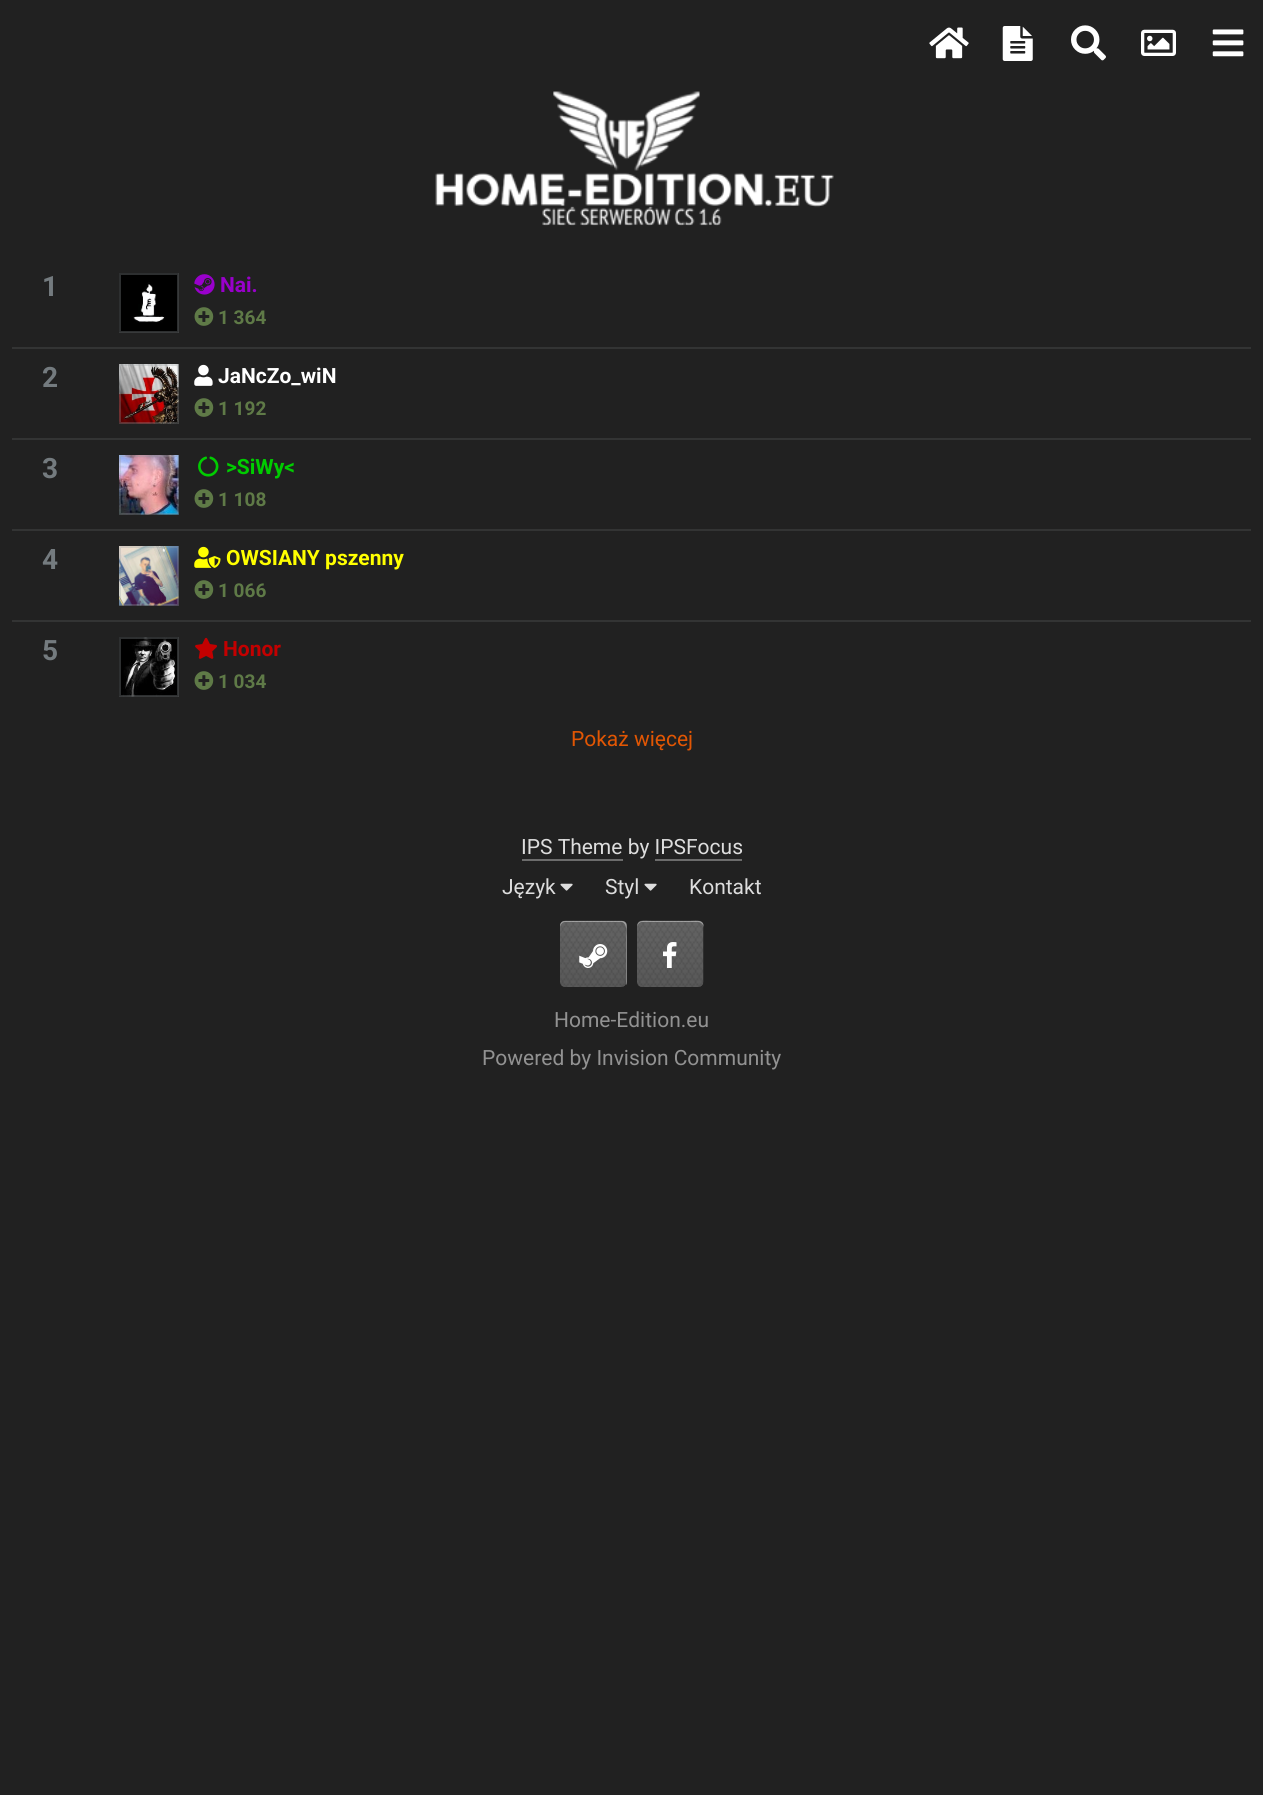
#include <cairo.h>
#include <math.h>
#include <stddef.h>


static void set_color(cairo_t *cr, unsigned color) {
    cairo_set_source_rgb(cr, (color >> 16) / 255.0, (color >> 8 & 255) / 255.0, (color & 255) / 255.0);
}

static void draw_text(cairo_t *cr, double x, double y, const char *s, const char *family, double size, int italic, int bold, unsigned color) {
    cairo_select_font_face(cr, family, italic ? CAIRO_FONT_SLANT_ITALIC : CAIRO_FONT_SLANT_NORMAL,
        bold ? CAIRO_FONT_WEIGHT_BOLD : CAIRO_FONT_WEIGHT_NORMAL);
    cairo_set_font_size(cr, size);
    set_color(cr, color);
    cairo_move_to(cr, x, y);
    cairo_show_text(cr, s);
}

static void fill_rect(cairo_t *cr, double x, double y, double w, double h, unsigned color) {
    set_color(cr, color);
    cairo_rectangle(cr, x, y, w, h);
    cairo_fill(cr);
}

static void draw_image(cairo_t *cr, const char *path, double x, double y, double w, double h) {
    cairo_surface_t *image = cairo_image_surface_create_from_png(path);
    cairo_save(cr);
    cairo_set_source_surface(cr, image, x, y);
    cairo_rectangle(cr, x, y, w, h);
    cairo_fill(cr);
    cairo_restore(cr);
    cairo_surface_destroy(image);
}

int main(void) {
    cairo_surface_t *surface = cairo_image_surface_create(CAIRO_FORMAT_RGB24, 1263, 1795);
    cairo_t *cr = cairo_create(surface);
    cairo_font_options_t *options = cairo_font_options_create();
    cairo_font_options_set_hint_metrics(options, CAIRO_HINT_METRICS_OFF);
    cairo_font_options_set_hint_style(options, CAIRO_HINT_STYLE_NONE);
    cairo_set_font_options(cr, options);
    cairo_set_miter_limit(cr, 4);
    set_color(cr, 0x212121);
    cairo_paint(cr);
    draw_image(cr, "assets/img1.png", 929, 27, 40, 32);
    draw_image(cr, "assets/img2.png", 1002, 26, 31, 35);
    draw_image(cr, "assets/img3.png", 1071, 25, 35, 36);
    draw_image(cr, "assets/img4.png", 1141, 29, 35, 27);
    draw_image(cr, "assets/img5.png", 1212, 29, 32, 28);
    draw_image(cr, "assets/img6.png", 435, 91, 399, 135);
    fill_rect(cr, 12, 347, 1239, 2, 0x333434);
    draw_text(cr, 42, 296, "1", "Roboto", 28, 0, 1, 0x747B7F);
    draw_image(cr, "assets/img7.png", 119, 273, 60, 60);
    cairo_rectangle(cr, 120, 274, 58, 58);
    cairo_set_source_rgba(cr, 0.596, 0.616, 0.627, 0.3);
    cairo_stroke(cr);
    draw_image(cr, "assets/img8.png", 194, 274, 21, 21);
    draw_text(cr, 220, 292, "Nai.", "Roboto", 21, 0, 1, 0x9900CC);
    draw_image(cr, "assets/img9.png", 194, 307, 20, 19);
    draw_text(cr, 218, 324, "1 364", "Roboto", 19, 0, 1, 0x5F7A47);
    fill_rect(cr, 12, 438, 1239, 2, 0x333434);
    draw_text(cr, 42, 387, "2", "Roboto", 28, 0, 1, 0x747B7F);
    draw_image(cr, "assets/img10.png", 119, 364, 60, 60);
    cairo_rectangle(cr, 120, 365, 58, 58);
    cairo_set_source_rgba(cr, 0.596, 0.616, 0.627, 0.3);
    cairo_stroke(cr);
    draw_image(cr, "assets/img11.png", 194, 364, 19, 22);
    draw_text(cr, 218, 383, "JaNcZo_wiN", "Roboto", 21, 0, 1, 0xFFFFFF);
    draw_image(cr, "assets/img9.png", 194, 398, 20, 19);
    draw_text(cr, 218, 415, "1 192", "Roboto", 19, 0, 1, 0x5F7A47);
    fill_rect(cr, 12, 529, 1239, 2, 0x333434);
    draw_text(cr, 42, 478, "3", "Roboto", 28, 0, 1, 0x747B7F);
    draw_image(cr, "assets/img12.png", 119, 455, 60, 60);
    cairo_rectangle(cr, 120, 456, 58, 58);
    cairo_set_source_rgba(cr, 0.596, 0.616, 0.627, 0.3);
    cairo_stroke(cr);
    draw_image(cr, "assets/img13.png", 198, 456, 21, 21);
    draw_text(cr, 226, 474, ">SiWy<", "Roboto", 21, 0, 1, 0x00CC00);
    draw_image(cr, "assets/img9.png", 194, 489, 20, 19);
    draw_text(cr, 218, 506, "1 108", "Roboto", 19, 0, 1, 0x5F7A47);
    fill_rect(cr, 12, 620, 1239, 2, 0x333434);
    draw_text(cr, 42, 569, "4", "Roboto", 28, 0, 1, 0x747B7F);
    draw_image(cr, "assets/img14.png", 119, 546, 60, 60);
    cairo_rectangle(cr, 120, 547, 58, 58);
    cairo_set_source_rgba(cr, 0.596, 0.616, 0.627, 0.3);
    cairo_stroke(cr);
    draw_image(cr, "assets/img15.png", 194, 546, 27, 22);
    draw_text(cr, 226, 565, "OWSIANY pszenny", "Roboto", 21, 0, 1, 0xFFFF00);
    draw_image(cr, "assets/img9.png", 194, 580, 20, 19);
    draw_text(cr, 218, 597, "1 066", "Roboto", 19, 0, 1, 0x5F7A47);
    draw_text(cr, 42, 660, "5", "Roboto", 28, 0, 1, 0x747B7F);
    draw_image(cr, "assets/img16.png", 119, 637, 60, 60);
    cairo_rectangle(cr, 120, 638, 58, 58);
    cairo_set_source_rgba(cr, 0.596, 0.616, 0.627, 0.3);
    cairo_stroke(cr);
    draw_image(cr, "assets/img17.png", 195, 637, 22, 22);
    draw_text(cr, 223, 656, "Honor", "Roboto", 21, 0, 1, 0xC30000);
    draw_image(cr, "assets/img9.png", 194, 671, 20, 19);
    draw_text(cr, 218, 688, "1 034", "Roboto", 19, 0, 1, 0x5F7A47);
    draw_text(cr, 571, 746, "Pokaż więcej", "Roboto", 21, 0, 0, 0xE25603);
    draw_text(cr, 521, 854, "IPS Theme by IPSFocus", "Roboto", 21, 0, 0, 0xDDDDDD);
    fill_rect(cr, 522, 859, 101, 2, 0x6C6C6C);
    fill_rect(cr, 655, 859, 87, 2, 0x6C6C6C);
    draw_text(cr, 502, 894, "Język", "Roboto", 21, 0, 0, 0xDDDDDD);
    draw_image(cr, "assets/img18.png", 560, 883, 13, 8);
    draw_text(cr, 605, 894, "Styl", "Roboto", 21, 0, 0, 0xDDDDDD);
    draw_image(cr, "assets/img18.png", 644, 883, 13, 8);
    draw_text(cr, 689, 894, "Kontakt", "Roboto", 21, 0, 0, 0xDDDDDD);
    draw_image(cr, "assets/img19.png", 560, 920, 67, 67);
    cairo_set_source_rgba(cr, 1, 1, 1, 0.3);
    cairo_new_path(cr);
    cairo_move_to(cr, 565, 922);
    cairo_line_to(cr, 622, 922);
    cairo_curve_to(cr, 628, 924, 626, 934, 626, 937);
    cairo_line_to(cr, 626, 985);
    cairo_curve_to(cr, 627, 984, 627, 983, 627, 982);
    cairo_line_to(cr, 627, 926);
    cairo_curve_to(cr, 627, 923, 625, 921, 622, 921);
    cairo_line_to(cr, 565, 921);
    cairo_curve_to(cr, 562, 921, 560, 923, 560, 926);
    cairo_line_to(cr, 560, 928);
    cairo_curve_to(cr, 560, 925, 562, 922, 565, 922);
    cairo_close_path(cr);
    cairo_fill(cr);
    draw_image(cr, "assets/img20.png", 579, 944, 29, 24);
    cairo_set_source_rgba(cr, 1, 1, 1, 0.15);
    cairo_new_path(cr);
    cairo_move_to(cr, 565, 922);
    cairo_curve_to(cr, 562, 922, 560, 925, 560, 928);
    cairo_line_to(cr, 560, 926);
    cairo_curve_to(cr, 560, 923, 562, 921, 565, 921);
    cairo_line_to(cr, 622, 921);
    cairo_curve_to(cr, 625, 921, 627, 923, 627, 926);
    cairo_line_to(cr, 627, 982);
    cairo_curve_to(cr, 627, 983, 627, 984, 626, 985);
    cairo_line_to(cr, 626, 937);
    cairo_curve_to(cr, 626, 934, 628, 922, 621, 922);
    cairo_close_path(cr);
    cairo_fill(cr);
    draw_image(cr, "assets/img19.png", 637, 920, 67, 67);
    cairo_set_source_rgba(cr, 1, 1, 1, 0.3);
    cairo_new_path(cr);
    cairo_move_to(cr, 642, 922);
    cairo_line_to(cr, 698, 922);
    cairo_curve_to(cr, 701, 922, 704, 925, 704, 928);
    cairo_curve_to(cr, 704, 919, 697, 921, 690, 921);
    cairo_line_to(cr, 652, 921);
    cairo_curve_to(cr, 644, 921, 637, 919, 637, 928);
    cairo_curve_to(cr, 637, 925, 639, 922, 642, 922);
    cairo_close_path(cr);
    cairo_fill(cr);
    cairo_set_source_rgba(cr, 1, 1, 1, 0.15);
    cairo_new_path(cr);
    cairo_move_to(cr, 642, 922);
    cairo_curve_to(cr, 639, 922, 637, 925, 637, 928);
    cairo_curve_to(cr, 637, 919, 644, 921, 652, 921);
    cairo_line_to(cr, 690, 921);
    cairo_curve_to(cr, 697, 921, 704, 919, 704, 928);
    cairo_curve_to(cr, 704, 925, 701, 922, 698, 922);
    cairo_close_path(cr);
    cairo_fill(cr);
    draw_image(cr, "assets/img21.png", 663, 942, 14, 26);
    draw_text(cr, 554, 1027, "Home-Edition.eu", "Roboto", 21, 0, 0, 0x929292);
    draw_text(cr, 482, 1065, "Powered by Invision Community", "Roboto", 21, 0, 0, 0x929292);
    cairo_surface_write_to_png(surface, "output.png");
    cairo_font_options_destroy(options);
    cairo_destroy(cr);
    cairo_surface_destroy(surface);
    return 0;
}
